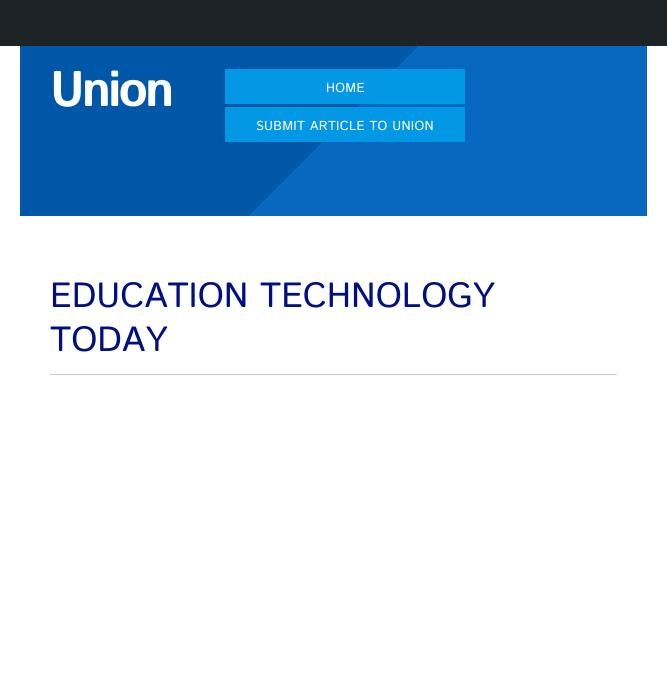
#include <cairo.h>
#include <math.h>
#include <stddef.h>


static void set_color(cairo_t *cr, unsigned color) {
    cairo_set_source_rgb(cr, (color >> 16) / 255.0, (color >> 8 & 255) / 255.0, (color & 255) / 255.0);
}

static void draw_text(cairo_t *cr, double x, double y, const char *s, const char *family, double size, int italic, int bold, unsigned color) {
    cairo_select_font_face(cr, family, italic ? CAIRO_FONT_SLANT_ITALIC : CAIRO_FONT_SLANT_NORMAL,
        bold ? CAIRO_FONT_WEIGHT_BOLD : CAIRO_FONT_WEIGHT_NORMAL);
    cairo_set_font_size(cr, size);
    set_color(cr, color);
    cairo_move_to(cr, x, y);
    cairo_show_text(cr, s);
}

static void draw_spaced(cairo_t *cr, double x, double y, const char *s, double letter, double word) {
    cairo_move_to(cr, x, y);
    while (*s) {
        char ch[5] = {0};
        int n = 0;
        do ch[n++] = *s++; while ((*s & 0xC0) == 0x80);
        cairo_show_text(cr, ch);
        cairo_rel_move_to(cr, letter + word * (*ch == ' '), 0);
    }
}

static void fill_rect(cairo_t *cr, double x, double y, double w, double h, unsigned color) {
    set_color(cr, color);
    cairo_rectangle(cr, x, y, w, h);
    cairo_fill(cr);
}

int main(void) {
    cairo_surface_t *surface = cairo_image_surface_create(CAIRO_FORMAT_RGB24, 667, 694);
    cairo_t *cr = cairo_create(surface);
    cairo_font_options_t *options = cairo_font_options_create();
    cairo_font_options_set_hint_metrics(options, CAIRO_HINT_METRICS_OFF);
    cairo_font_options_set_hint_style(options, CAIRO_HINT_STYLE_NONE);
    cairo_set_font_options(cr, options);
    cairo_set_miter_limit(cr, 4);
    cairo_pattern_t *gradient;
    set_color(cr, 0xFFFFFF);
    cairo_paint(cr);
    fill_rect(cr, 0, 0, 667, 46, 0x1D2327);
    gradient = cairo_pattern_create_linear(533, 330, 134, -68);
    cairo_pattern_add_color_stop_rgba(gradient, 0.5, 0.031, 0.404, 0.749, 1);
    cairo_pattern_add_color_stop_rgba(gradient, 0.5, 0.004, 0.341, 0.655, 1);
    cairo_set_source(cr, gradient);
    cairo_pattern_destroy(gradient);
    cairo_rectangle(cr, 20, 46, 627, 170);
    cairo_fill(cr);
    cairo_select_font_face(cr, "Istok Web", CAIRO_FONT_SLANT_NORMAL, CAIRO_FONT_WEIGHT_BOLD);
    cairo_set_font_size(cr, 50);
    set_color(cr, 0xFFFFFF);
    draw_spaced(cr, 50, 106, "Union", -3, 0);
    fill_rect(cr, 225, 69, 240, 35, 0x0398E5);
    cairo_select_font_face(cr, "Istok Web", CAIRO_FONT_SLANT_NORMAL, CAIRO_FONT_WEIGHT_NORMAL);
    cairo_set_font_size(cr, 13);
    set_color(cr, 0xFFFFFF);
    draw_spaced(cr, 326, 92, "HOME", 0.3, 0);
    fill_rect(cr, 225, 107, 240, 35, 0x0398E5);
    set_color(cr, 0xFFFFFF);
    draw_spaced(cr, 256, 130, "SUBMIT ARTICLE TO UNION", 0.3, 0);
    draw_text(cr, 50, 307, "EDUCATION TECHNOLOGY", "Istok Web", 35, 0, 0, 0x011080);
    draw_text(cr, 50, 351, "TODAY", "Istok Web", 35, 0, 0, 0x011080);
    fill_rect(cr, 50, 374, 567, 1, 0xCCCCCC);
    cairo_surface_write_to_png(surface, "output.png");
    cairo_font_options_destroy(options);
    cairo_destroy(cr);
    cairo_surface_destroy(surface);
    return 0;
}
